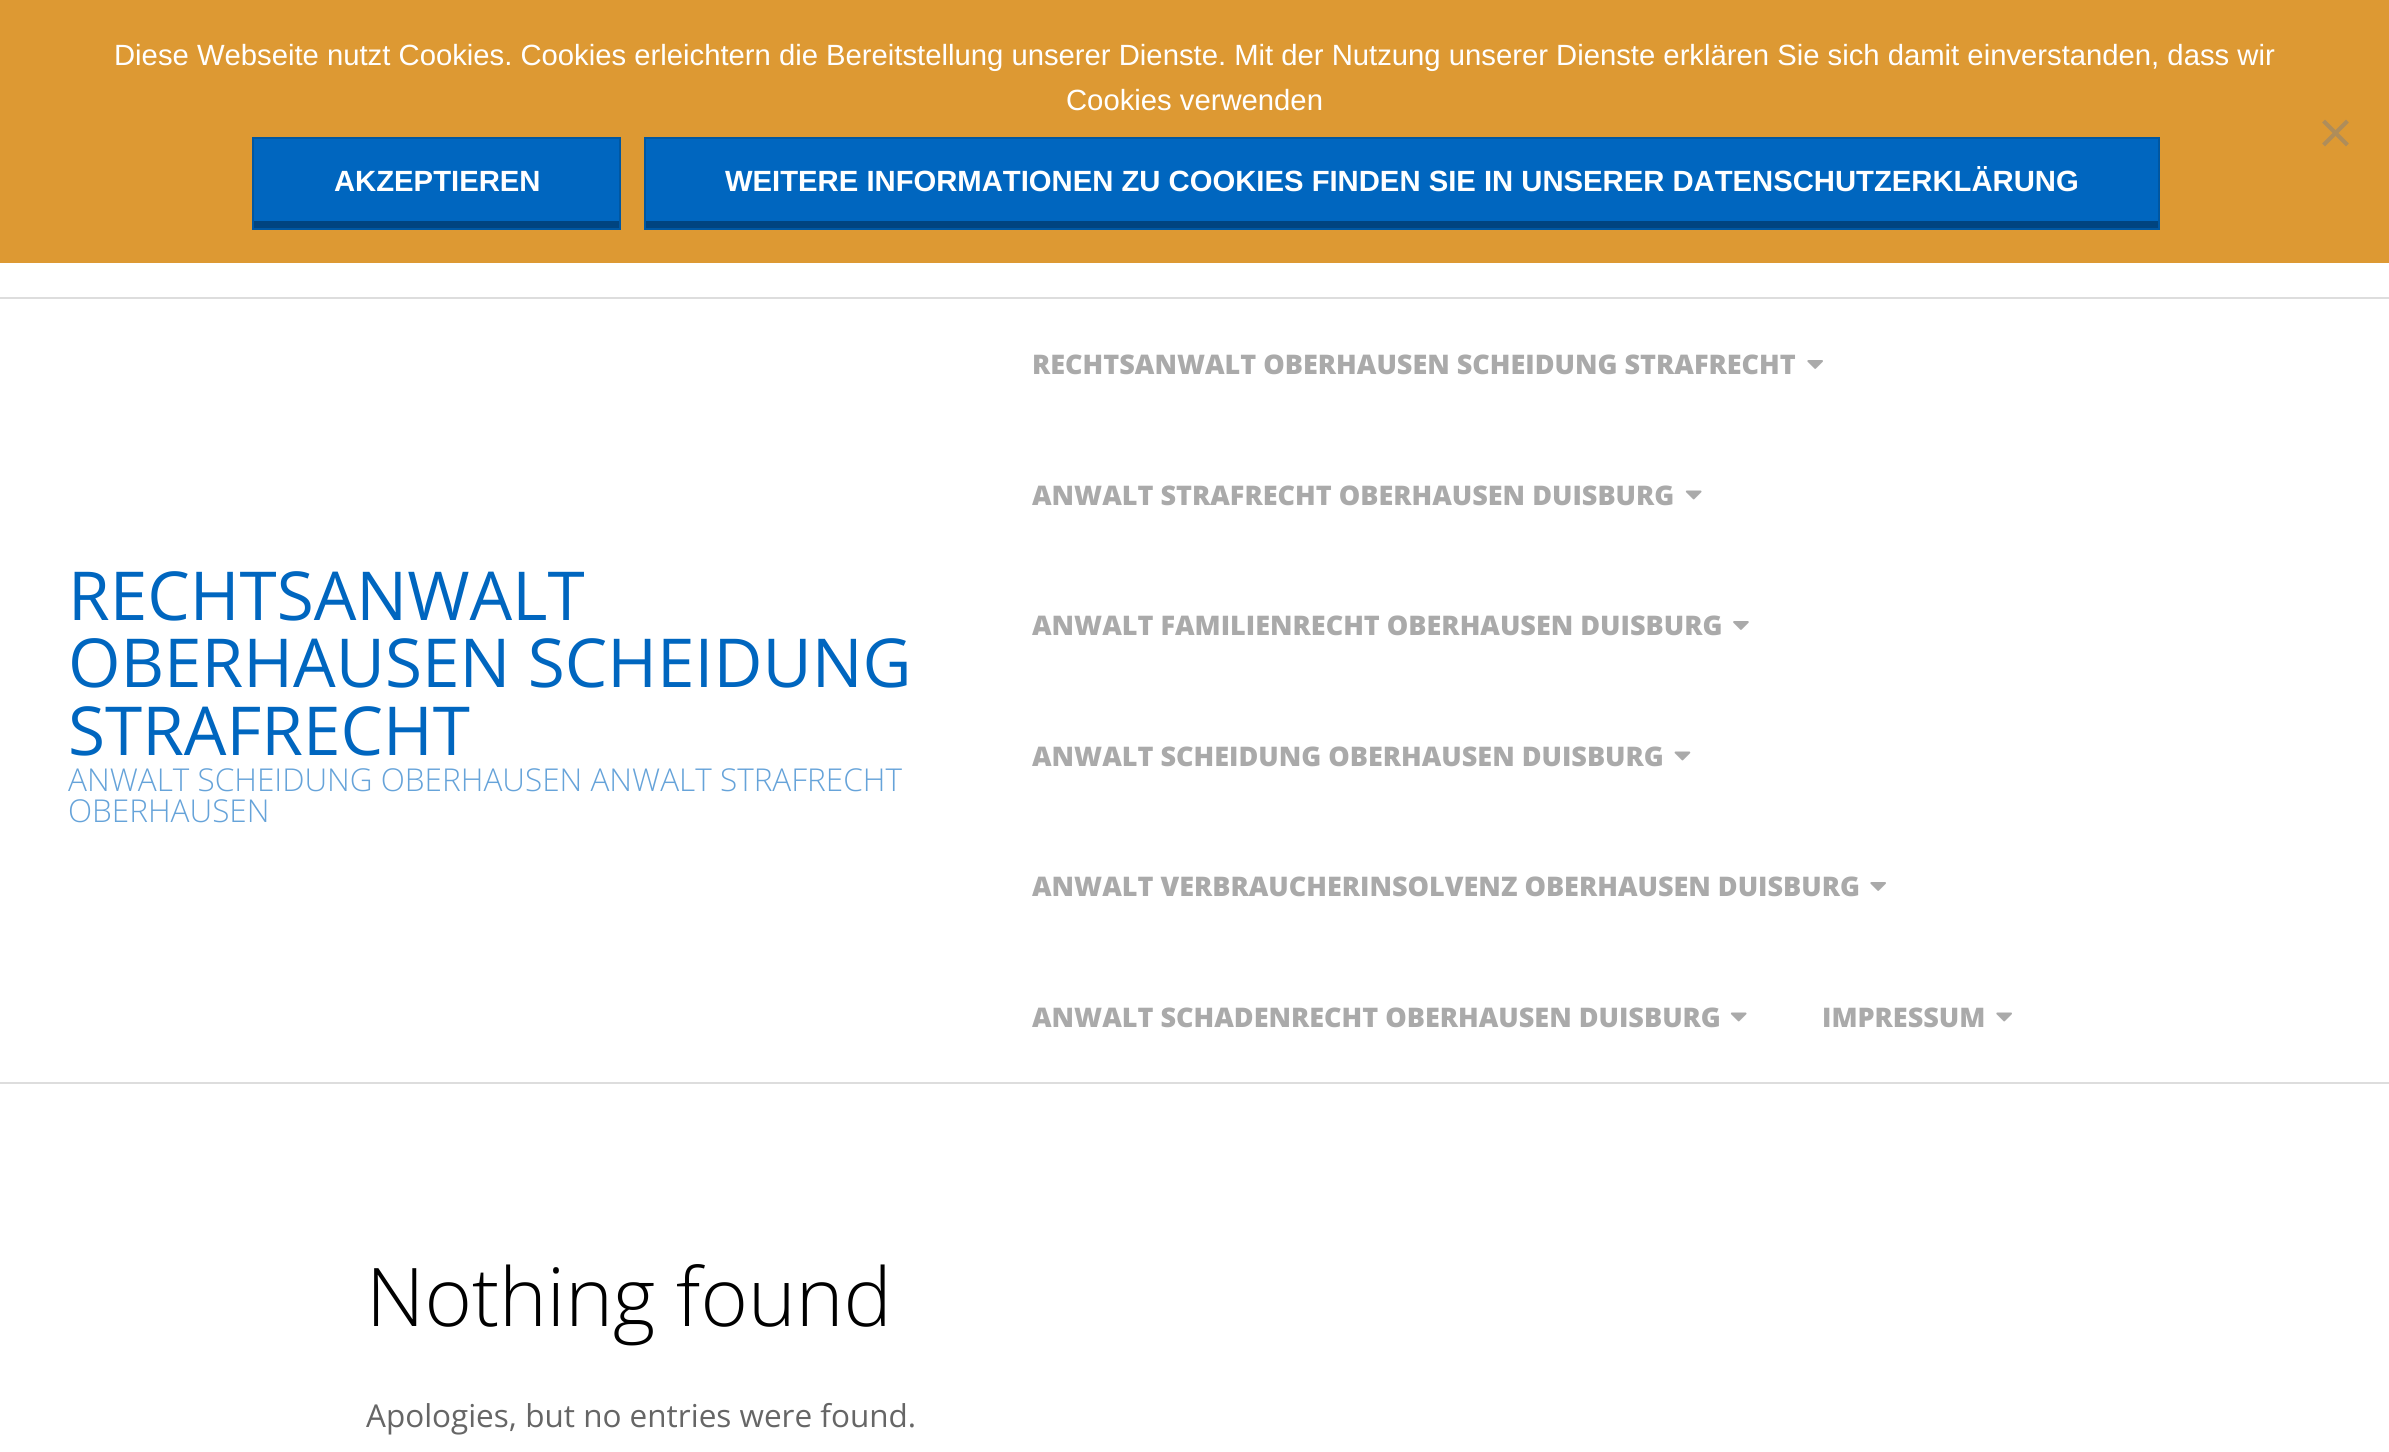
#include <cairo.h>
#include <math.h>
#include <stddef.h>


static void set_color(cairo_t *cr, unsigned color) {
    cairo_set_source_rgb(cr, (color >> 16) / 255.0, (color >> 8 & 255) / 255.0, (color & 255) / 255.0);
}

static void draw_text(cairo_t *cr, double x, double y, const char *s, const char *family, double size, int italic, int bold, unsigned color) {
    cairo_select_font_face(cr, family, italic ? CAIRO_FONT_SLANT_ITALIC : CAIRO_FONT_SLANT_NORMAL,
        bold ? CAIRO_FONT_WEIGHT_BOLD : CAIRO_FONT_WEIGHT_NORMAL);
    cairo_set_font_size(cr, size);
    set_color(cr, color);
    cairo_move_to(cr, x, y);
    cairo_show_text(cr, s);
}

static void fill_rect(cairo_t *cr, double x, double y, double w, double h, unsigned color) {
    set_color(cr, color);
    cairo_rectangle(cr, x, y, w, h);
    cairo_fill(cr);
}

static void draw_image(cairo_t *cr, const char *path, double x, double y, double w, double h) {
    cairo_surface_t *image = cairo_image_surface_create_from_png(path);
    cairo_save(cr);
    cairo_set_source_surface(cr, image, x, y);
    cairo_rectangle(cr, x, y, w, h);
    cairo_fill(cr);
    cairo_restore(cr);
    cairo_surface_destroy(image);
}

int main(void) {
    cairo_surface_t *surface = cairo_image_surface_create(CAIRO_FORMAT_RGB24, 2389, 1452);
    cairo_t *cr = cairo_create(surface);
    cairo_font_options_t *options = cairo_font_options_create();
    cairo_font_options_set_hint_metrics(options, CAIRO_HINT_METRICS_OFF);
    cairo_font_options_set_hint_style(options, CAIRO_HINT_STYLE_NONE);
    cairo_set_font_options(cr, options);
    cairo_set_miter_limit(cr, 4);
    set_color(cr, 0xFFFFFF);
    cairo_paint(cr);
    fill_rect(cr, 0, 0, 2389, 263, 0xDD9933);
    draw_text(cr, 114, 65, "Diese Webseite nutzt Cookies. Cookies erleichtern die Bereitstellung unserer Dienste. Mit der Nutzung unserer Dienste erklären Sie sich damit einverstanden, dass wir", "Liberation Sans", 29.25, 0, 0, 0xFFFFFF);
    draw_text(cr, 1066, 110, "Cookies verwenden", "Liberation Sans", 29.25, 0, 0, 0xFFFFFF);
    set_color(cr, 0xAF8D5A);
    cairo_new_path(cr);
    cairo_move_to(cr, 2346, 119.5);
    cairo_line_to(cr, 2349, 122.5);
    cairo_line_to(cr, 2325, 146.5);
    cairo_line_to(cr, 2322, 143.5);
    cairo_close_path(cr);
    cairo_fill(cr);
    cairo_new_path(cr);
    cairo_move_to(cr, 2322, 122.5);
    cairo_line_to(cr, 2325, 119.5);
    cairo_line_to(cr, 2349, 143.5);
    cairo_line_to(cr, 2346, 146.5);
    cairo_close_path(cr);
    cairo_fill(cr);
    fill_rect(cr, 254, 139, 365, 82, 0x0066BF);
    fill_rect(cr, 254, 221, 365, 7, 0x004480);
    cairo_rectangle(cr, 253, 138, 367, 91);
    set_color(cr, 0x0057A2);
    cairo_stroke(cr);
    draw_text(cr, 334, 191, "AKZEPTIEREN", "Liberation Sans", 29.25, 0, 1, 0xFFFFFF);
    fill_rect(cr, 646, 139, 1512, 82, 0x0066BF);
    fill_rect(cr, 646, 221, 1512, 7, 0x004480);
    cairo_rectangle(cr, 645, 138, 1514, 91);
    set_color(cr, 0x0057A2);
    cairo_stroke(cr);
    draw_text(cr, 725, 191, "WEITERE INFORMATIONEN ZU COOKIES FINDEN SIE IN UNSERER DATENSCHUTZERKLÄRUNG", "Liberation Sans", 29.25, 0, 1, 0xFFFFFF);
    fill_rect(cr, 0, 297, 2389, 2, 0xDDDDDD);
    fill_rect(cr, 0, 1082, 2389, 2, 0xDDDDDD);
    draw_text(cr, 68, 620, "RECHTSANWALT", "Open Sans", 67.5, 0, 0, 0x0066BF);
    draw_text(cr, 68, 687, "OBERHAUSEN SCHEIDUNG", "Open Sans", 67.5, 0, 0, 0x0066BF);
    draw_text(cr, 68, 755, "STRAFRECHT", "Open Sans", 67.5, 0, 0, 0x0066BF);
    draw_text(cr, 68, 791, "ANWALT SCHEIDUNG OBERHAUSEN ANWALT STRAFRECHT", "Open Sans Light", 31.5, 0, 0, 0x66A3D9);
    draw_text(cr, 68, 822, "OBERHAUSEN", "Open Sans Light", 31.5, 0, 0, 0x66A3D9);
    draw_text(cr, 1032, 374, "RECHTSANWALT OBERHAUSEN SCHEIDUNG STRAFRECHT", "Open Sans ExtraBold", 27, 0, 0, 0xAAAAAA);
    draw_image(cr, "assets/img1.png", 1807, 360, 16, 9);
    draw_text(cr, 1032, 505, "ANWALT STRAFRECHT OBERHAUSEN DUISBURG", "Open Sans ExtraBold", 27, 0, 0, 0xAAAAAA);
    draw_image(cr, "assets/img2.png", 1685, 490, 17, 10);
    draw_text(cr, 1032, 635, "ANWALT FAMILIENRECHT OBERHAUSEN DUISBURG", "Open Sans ExtraBold", 27, 0, 0, 0xAAAAAA);
    draw_image(cr, "assets/img3.png", 1733, 621, 16, 9);
    draw_text(cr, 1032, 766, "ANWALT SCHEIDUNG OBERHAUSEN DUISBURG", "Open Sans ExtraBold", 27, 0, 0, 0xAAAAAA);
    draw_image(cr, "assets/img4.png", 1674, 751, 17, 10);
    draw_text(cr, 1032, 896, "ANWALT VERBRAUCHERINSOLVENZ OBERHAUSEN DUISBURG", "Open Sans ExtraBold", 27, 0, 0, 0xAAAAAA);
    draw_image(cr, "assets/img1.png", 1870, 882, 16, 9);
    draw_text(cr, 1032, 1027, "ANWALT SCHADENRECHT OBERHAUSEN DUISBURG", "Open Sans ExtraBold", 27, 0, 0, 0xAAAAAA);
    draw_image(cr, "assets/img2.png", 1730, 1012, 17, 10);
    draw_text(cr, 1822, 1027, "IMPRESSUM", "Open Sans ExtraBold", 27, 0, 0, 0xAAAAAA);
    draw_image(cr, "assets/img5.png", 1996, 1012, 16, 10);
    draw_text(cr, 366, 1326, "Nothing found", "Open Sans Light", 81, 0, 0, 0x000000);
    draw_text(cr, 366, 1427, "Apologies, but no entries were found.", "Open Sans", 31.5, 0, 0, 0x666666);
    cairo_surface_write_to_png(surface, "output.png");
    cairo_font_options_destroy(options);
    cairo_destroy(cr);
    cairo_surface_destroy(surface);
    return 0;
}
